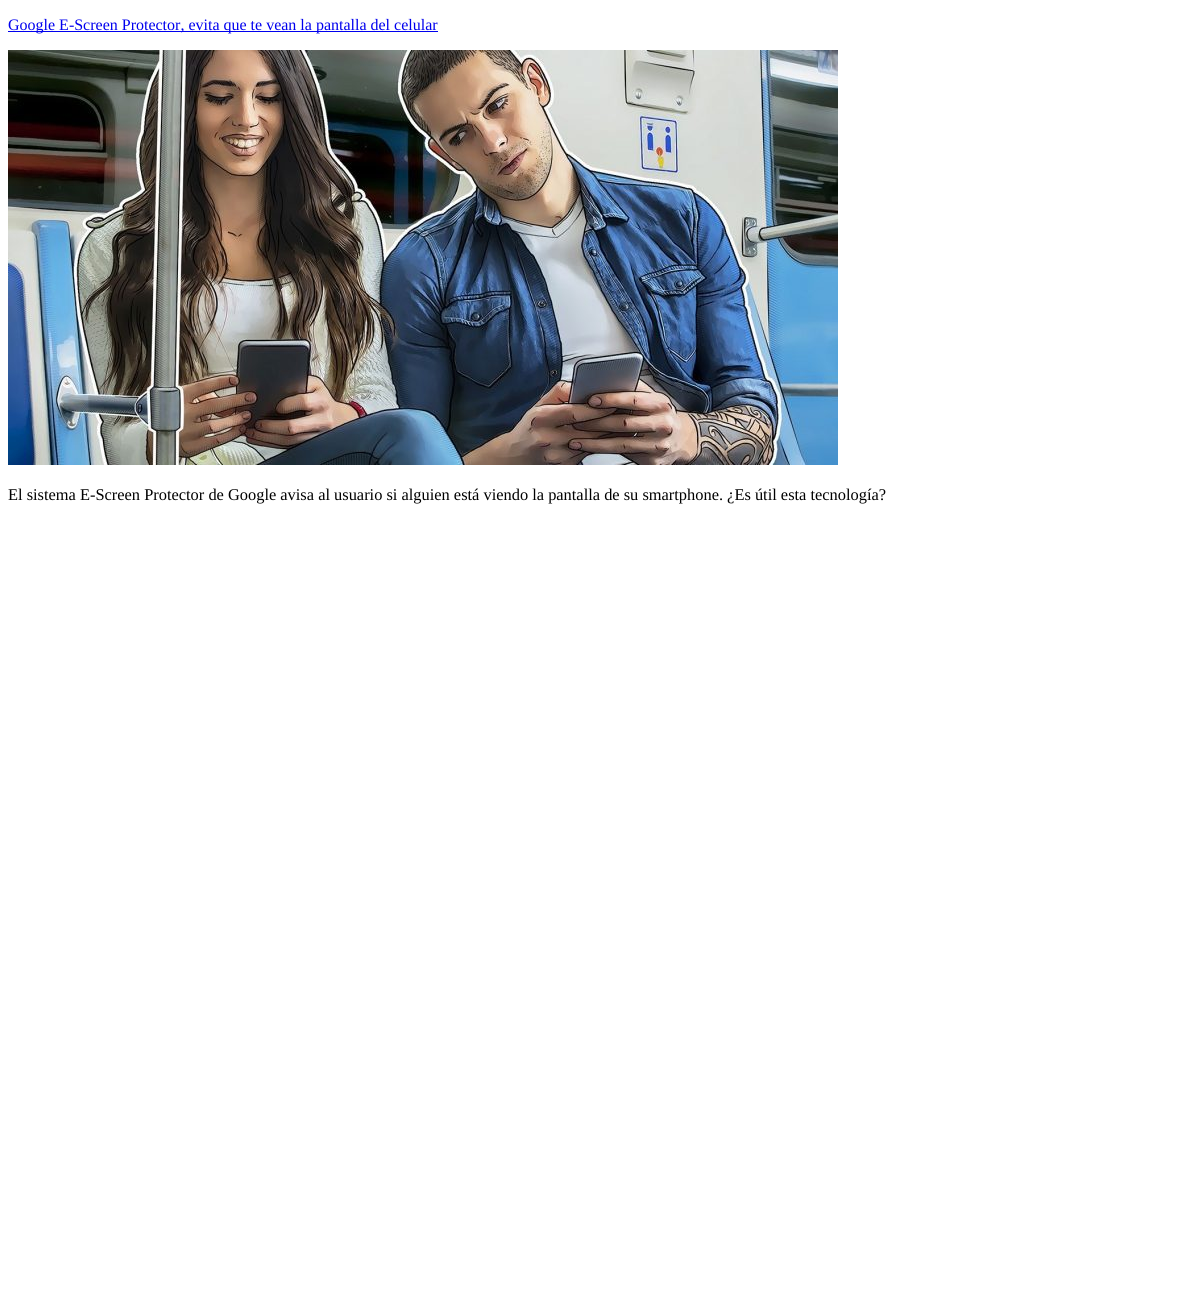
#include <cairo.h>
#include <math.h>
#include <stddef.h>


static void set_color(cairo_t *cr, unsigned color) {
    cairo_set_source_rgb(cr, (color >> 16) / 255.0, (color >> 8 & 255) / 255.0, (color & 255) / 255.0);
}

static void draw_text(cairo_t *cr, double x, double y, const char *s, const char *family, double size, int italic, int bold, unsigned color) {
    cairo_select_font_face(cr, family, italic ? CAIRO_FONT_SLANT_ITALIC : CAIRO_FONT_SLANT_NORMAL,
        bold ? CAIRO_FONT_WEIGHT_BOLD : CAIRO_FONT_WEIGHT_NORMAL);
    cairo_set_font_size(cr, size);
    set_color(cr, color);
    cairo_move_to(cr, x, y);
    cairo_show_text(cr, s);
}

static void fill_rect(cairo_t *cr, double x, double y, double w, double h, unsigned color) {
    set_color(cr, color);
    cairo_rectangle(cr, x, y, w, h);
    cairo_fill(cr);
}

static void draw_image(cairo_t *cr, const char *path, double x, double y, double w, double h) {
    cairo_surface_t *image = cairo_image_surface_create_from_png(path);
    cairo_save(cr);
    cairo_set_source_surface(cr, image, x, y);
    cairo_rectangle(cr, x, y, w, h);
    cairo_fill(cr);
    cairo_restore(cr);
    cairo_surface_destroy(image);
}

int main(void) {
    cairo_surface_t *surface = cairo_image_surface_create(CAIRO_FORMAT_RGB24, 1185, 1293);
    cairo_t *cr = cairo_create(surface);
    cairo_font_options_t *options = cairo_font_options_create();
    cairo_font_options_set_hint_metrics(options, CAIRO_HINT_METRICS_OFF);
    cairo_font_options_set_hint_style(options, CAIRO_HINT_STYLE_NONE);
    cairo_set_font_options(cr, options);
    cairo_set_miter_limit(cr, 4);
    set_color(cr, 0xFFFFFF);
    cairo_paint(cr);
    fill_rect(cr, 8, 31, 430, 1, 0x0000EE);
    draw_text(cr, 8, 30, "Google E-Screen Protector, evita que te vean la pantalla del celular", "Liberation Serif", 16, 0, 0, 0x0000EE);
    draw_image(cr, "assets/img1.png", 8, 50, 830, 415);
    draw_text(cr, 8, 500, "El sistema E-Screen Protector de Google avisa al usuario si alguien está viendo la pantalla de su smartphone. ¿Es útil esta tecnología?", "Liberation Serif", 16.4, 0, 0, 0x000000);
    cairo_surface_write_to_png(surface, "output.png");
    cairo_font_options_destroy(options);
    cairo_destroy(cr);
    cairo_surface_destroy(surface);
    return 0;
}
